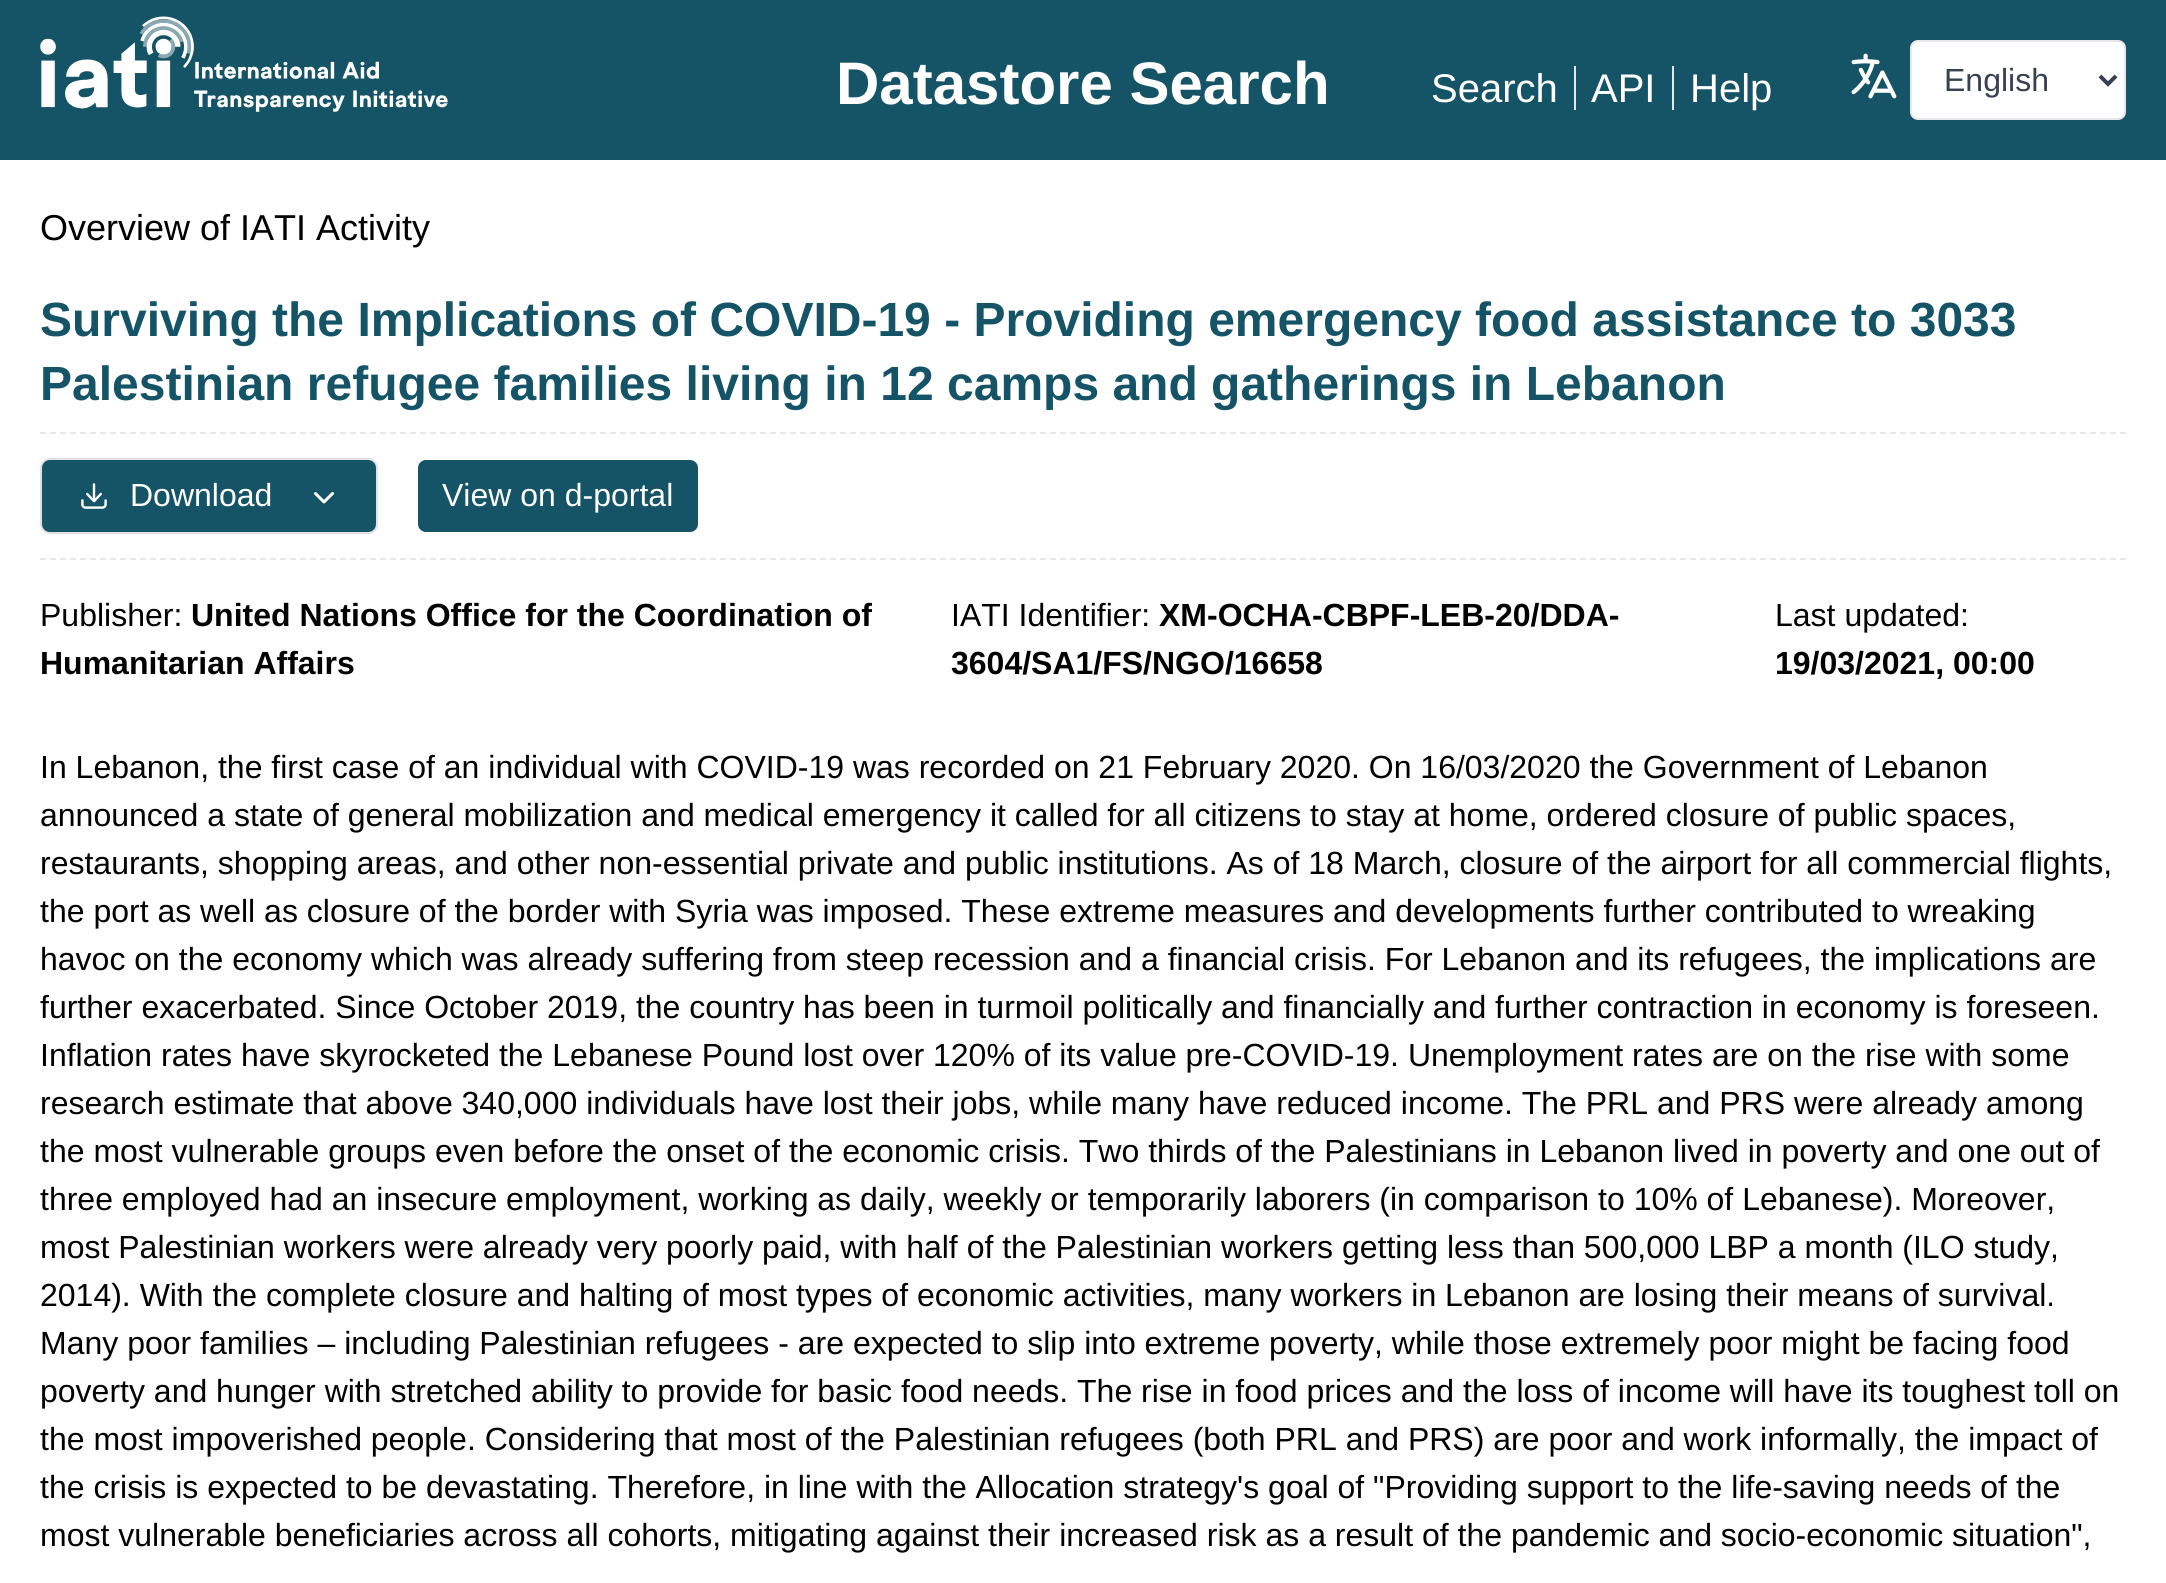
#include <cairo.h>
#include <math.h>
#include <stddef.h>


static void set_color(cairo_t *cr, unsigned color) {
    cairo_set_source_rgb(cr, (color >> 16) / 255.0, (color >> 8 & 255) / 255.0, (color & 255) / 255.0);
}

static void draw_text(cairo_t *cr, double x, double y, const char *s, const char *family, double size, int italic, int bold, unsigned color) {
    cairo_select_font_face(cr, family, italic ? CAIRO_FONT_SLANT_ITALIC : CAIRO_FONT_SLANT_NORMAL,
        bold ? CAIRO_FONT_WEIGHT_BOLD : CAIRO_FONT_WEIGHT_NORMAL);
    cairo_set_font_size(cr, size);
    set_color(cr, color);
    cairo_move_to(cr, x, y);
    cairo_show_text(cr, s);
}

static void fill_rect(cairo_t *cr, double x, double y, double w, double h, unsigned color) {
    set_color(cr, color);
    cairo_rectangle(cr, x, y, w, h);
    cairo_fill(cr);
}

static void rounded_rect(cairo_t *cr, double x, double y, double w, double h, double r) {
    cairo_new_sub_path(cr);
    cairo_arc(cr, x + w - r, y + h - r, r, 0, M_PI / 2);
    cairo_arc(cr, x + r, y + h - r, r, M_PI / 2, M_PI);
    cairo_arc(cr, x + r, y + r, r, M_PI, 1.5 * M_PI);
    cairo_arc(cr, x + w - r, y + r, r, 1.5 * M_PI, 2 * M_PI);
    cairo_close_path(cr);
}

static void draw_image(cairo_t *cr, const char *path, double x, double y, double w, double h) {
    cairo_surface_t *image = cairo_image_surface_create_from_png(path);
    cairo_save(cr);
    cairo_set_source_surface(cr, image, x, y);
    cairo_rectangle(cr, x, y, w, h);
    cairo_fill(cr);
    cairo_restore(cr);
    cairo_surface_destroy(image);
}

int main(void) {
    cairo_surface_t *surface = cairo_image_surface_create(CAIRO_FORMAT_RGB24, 2166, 1583);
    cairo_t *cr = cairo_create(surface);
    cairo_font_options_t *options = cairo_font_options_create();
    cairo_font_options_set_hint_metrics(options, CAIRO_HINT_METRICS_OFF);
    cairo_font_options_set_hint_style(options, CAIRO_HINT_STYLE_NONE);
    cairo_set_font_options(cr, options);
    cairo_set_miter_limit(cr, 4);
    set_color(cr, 0xFFFFFF);
    cairo_paint(cr);
    fill_rect(cr, 0, 0, 2166, 160, 0x155366);
    draw_image(cr, "assets/img1.png", 40, 16, 408, 96);
    draw_text(cr, 836, 104, "Datastore Search", "Liberation Sans", 60, 0, 1, 0xFFFFFF);
    draw_text(cr, 1431, 102, "Search", "Liberation Sans", 40, 0, 0, 0xFFFFFF);
    draw_text(cr, 1591, 102, "API", "Liberation Sans", 40, 0, 0, 0xFFFFFF);
    fill_rect(cr, 1574, 66, 2, 44, 0xE5E7EB);
    draw_text(cr, 1690, 102, "Help", "Liberation Sans", 40, 0, 0, 0xFFFFFF);
    fill_rect(cr, 1672, 66, 2, 44, 0xE5E7EB);
    draw_image(cr, "assets/img2.png", 1851, 53, 46, 46);
    set_color(cr, 0xFFFFFF);
    rounded_rect(cr, 1911, 41, 214, 78, 7);
    cairo_fill_preserve(cr);
    set_color(cr, 0xE5E7EB);
    cairo_stroke(cr);
    cairo_new_path(cr);
    cairo_move_to(cr, 2100, 76);
    cairo_line_to(cr, 2108, 84);
    cairo_line_to(cr, 2116, 76);
    set_color(cr, 0x374151);
    cairo_set_line_width(cr, 4);
    cairo_stroke(cr);
    draw_text(cr, 1944, 91, "English", "Liberation Sans", 32, 0, 0, 0x374151);
    draw_text(cr, 40, 240, "Overview of IATI Activity", "Liberation Sans", 36, 0, 0, 0x000000);
    cairo_new_path(cr);
    cairo_move_to(cr, 40, 433);
    cairo_line_to(cr, 2126, 433);
    set_color(cr, 0xE5E7EB);
    cairo_set_line_width(cr, 2);
    cairo_set_dash(cr, (double[]){6, 4}, 2, 0);
    cairo_stroke(cr);
    draw_text(cr, 40, 336, "Surviving the Implications of COVID-19 - Providing emergency food assistance to 3033", "Liberation Sans", 48, 0, 1, 0x155366);
    draw_text(cr, 40, 400, "Palestinian refugee families living in 12 camps and gatherings in Lebanon", "Liberation Sans", 48, 0, 1, 0x155366);
    cairo_new_path(cr);
    cairo_move_to(cr, 40, 559);
    cairo_line_to(cr, 2126, 559);
    set_color(cr, 0xE5E7EB);
    cairo_stroke(cr);
    set_color(cr, 0x155366);
    rounded_rect(cr, 41, 459, 336, 74, 9);
    cairo_fill_preserve(cr);
    set_color(cr, 0xE0E1E2);
    cairo_set_dash(cr, NULL, 0, 0);
    cairo_stroke(cr);
    draw_image(cr, "assets/img3.png", 81, 483, 26, 26);
    draw_text(cr, 130, 506, "Download", "Liberation Sans", 32, 0, 0, 0xFFFFFF);
    draw_image(cr, "assets/img4.png", 314, 492, 20, 12);
    set_color(cr, 0x155366);
    rounded_rect(cr, 418, 460, 280, 72, 8);
    cairo_fill(cr);
    draw_text(cr, 442, 506, "View on d-portal", "Liberation Sans", 32, 0, 0, 0xFFFFFF);
    draw_text(cr, 40, 626, "Publisher:", "Liberation Sans", 32, 0, 0, 0x000000);
    draw_text(cr, 191, 626, "United Nations Office for the Coordination of", "Liberation Sans", 32, 0, 1, 0x000000);
    draw_text(cr, 40, 674, "Humanitarian Affairs", "Liberation Sans", 32, 0, 1, 0x000000);
    draw_text(cr, 951, 626, "IATI Identifier:", "Liberation Sans", 32, 0, 0, 0x000000);
    draw_text(cr, 1159, 626, "XM-OCHA-CBPF-LEB-20/DDA-", "Liberation Sans", 32, 0, 1, 0x000000);
    draw_text(cr, 951, 674, "3604/SA1/FS/NGO/16658", "Liberation Sans", 32, 0, 1, 0x000000);
    draw_text(cr, 1775, 626, "Last updated:", "Liberation Sans", 32, 0, 0, 0x000000);
    draw_text(cr, 1775, 674, "19/03/2021, 00:00", "Liberation Sans", 32, 0, 1, 0x000000);
    draw_text(cr, 40, 778, "In Lebanon, the first case of an individual with COVID-19 was recorded on 21 February 2020. On 16/03/2020 the Government of Lebanon", "Liberation Sans", 32, 0, 0, 0x000000);
    draw_text(cr, 40, 826, "announced a state of general mobilization and medical emergency it called for all citizens to stay at home, ordered closure of public spaces,", "Liberation Sans", 32, 0, 0, 0x000000);
    draw_text(cr, 40, 874, "restaurants, shopping areas, and other non-essential private and public institutions. As of 18 March, closure of the airport for all commercial flights,", "Liberation Sans", 32, 0, 0, 0x000000);
    draw_text(cr, 40, 922, "the port as well as closure of the border with Syria was imposed. These extreme measures and developments further contributed to wreaking", "Liberation Sans", 32, 0, 0, 0x000000);
    draw_text(cr, 40, 970, "havoc on the economy which was already suffering from steep recession and a financial crisis. For Lebanon and its refugees, the implications are", "Liberation Sans", 32, 0, 0, 0x000000);
    draw_text(cr, 40, 1018, "further exacerbated. Since October 2019, the country has been in turmoil politically and financially and further contraction in economy is foreseen.", "Liberation Sans", 32, 0, 0, 0x000000);
    draw_text(cr, 40, 1066, "Inflation rates have skyrocketed the Lebanese Pound lost over 120% of its value pre-COVID-19. Unemployment rates are on the rise with some", "Liberation Sans", 32, 0, 0, 0x000000);
    draw_text(cr, 40, 1114, "research estimate that above 340,000 individuals have lost their jobs, while many have reduced income. The PRL and PRS were already among", "Liberation Sans", 32, 0, 0, 0x000000);
    draw_text(cr, 40, 1162, "the most vulnerable groups even before the onset of the economic crisis. Two thirds of the Palestinians in Lebanon lived in poverty and one out of", "Liberation Sans", 32, 0, 0, 0x000000);
    draw_text(cr, 40, 1210, "three employed had an insecure employment, working as daily, weekly or temporarily laborers (in comparison to 10% of Lebanese). Moreover,", "Liberation Sans", 32, 0, 0, 0x000000);
    draw_text(cr, 40, 1258, "most Palestinian workers were already very poorly paid, with half of the Palestinian workers getting less than 500,000 LBP a month (ILO study,", "Liberation Sans", 32, 0, 0, 0x000000);
    draw_text(cr, 40, 1306, "2014). With the complete closure and halting of most types of economic activities, many workers in Lebanon are losing their means of survival.", "Liberation Sans", 32, 0, 0, 0x000000);
    draw_text(cr, 40, 1354, "Many poor families – including Palestinian refugees - are expected to slip into extreme poverty, while those extremely poor might be facing food", "Liberation Sans", 32, 0, 0, 0x000000);
    draw_text(cr, 40, 1402, "poverty and hunger with stretched ability to provide for basic food needs. The rise in food prices and the loss of income will have its toughest toll on", "Liberation Sans", 32, 0, 0, 0x000000);
    draw_text(cr, 40, 1450, "the most impoverished people. Considering that most of the Palestinian refugees (both PRL and PRS) are poor and work informally, the impact of", "Liberation Sans", 32, 0, 0, 0x000000);
    draw_text(cr, 40, 1498, "the crisis is expected to be devastating. Therefore, in line with the Allocation strategy's goal of \"Providing support to the life-saving needs of the", "Liberation Sans", 32, 0, 0, 0x000000);
    draw_text(cr, 40, 1546, "most vulnerable beneficiaries across all cohorts, mitigating against their increased risk as a result of the pandemic and socio-economic situation\",", "Liberation Sans", 32, 0, 0, 0x000000);
    cairo_surface_write_to_png(surface, "output.png");
    cairo_font_options_destroy(options);
    cairo_destroy(cr);
    cairo_surface_destroy(surface);
    return 0;
}
